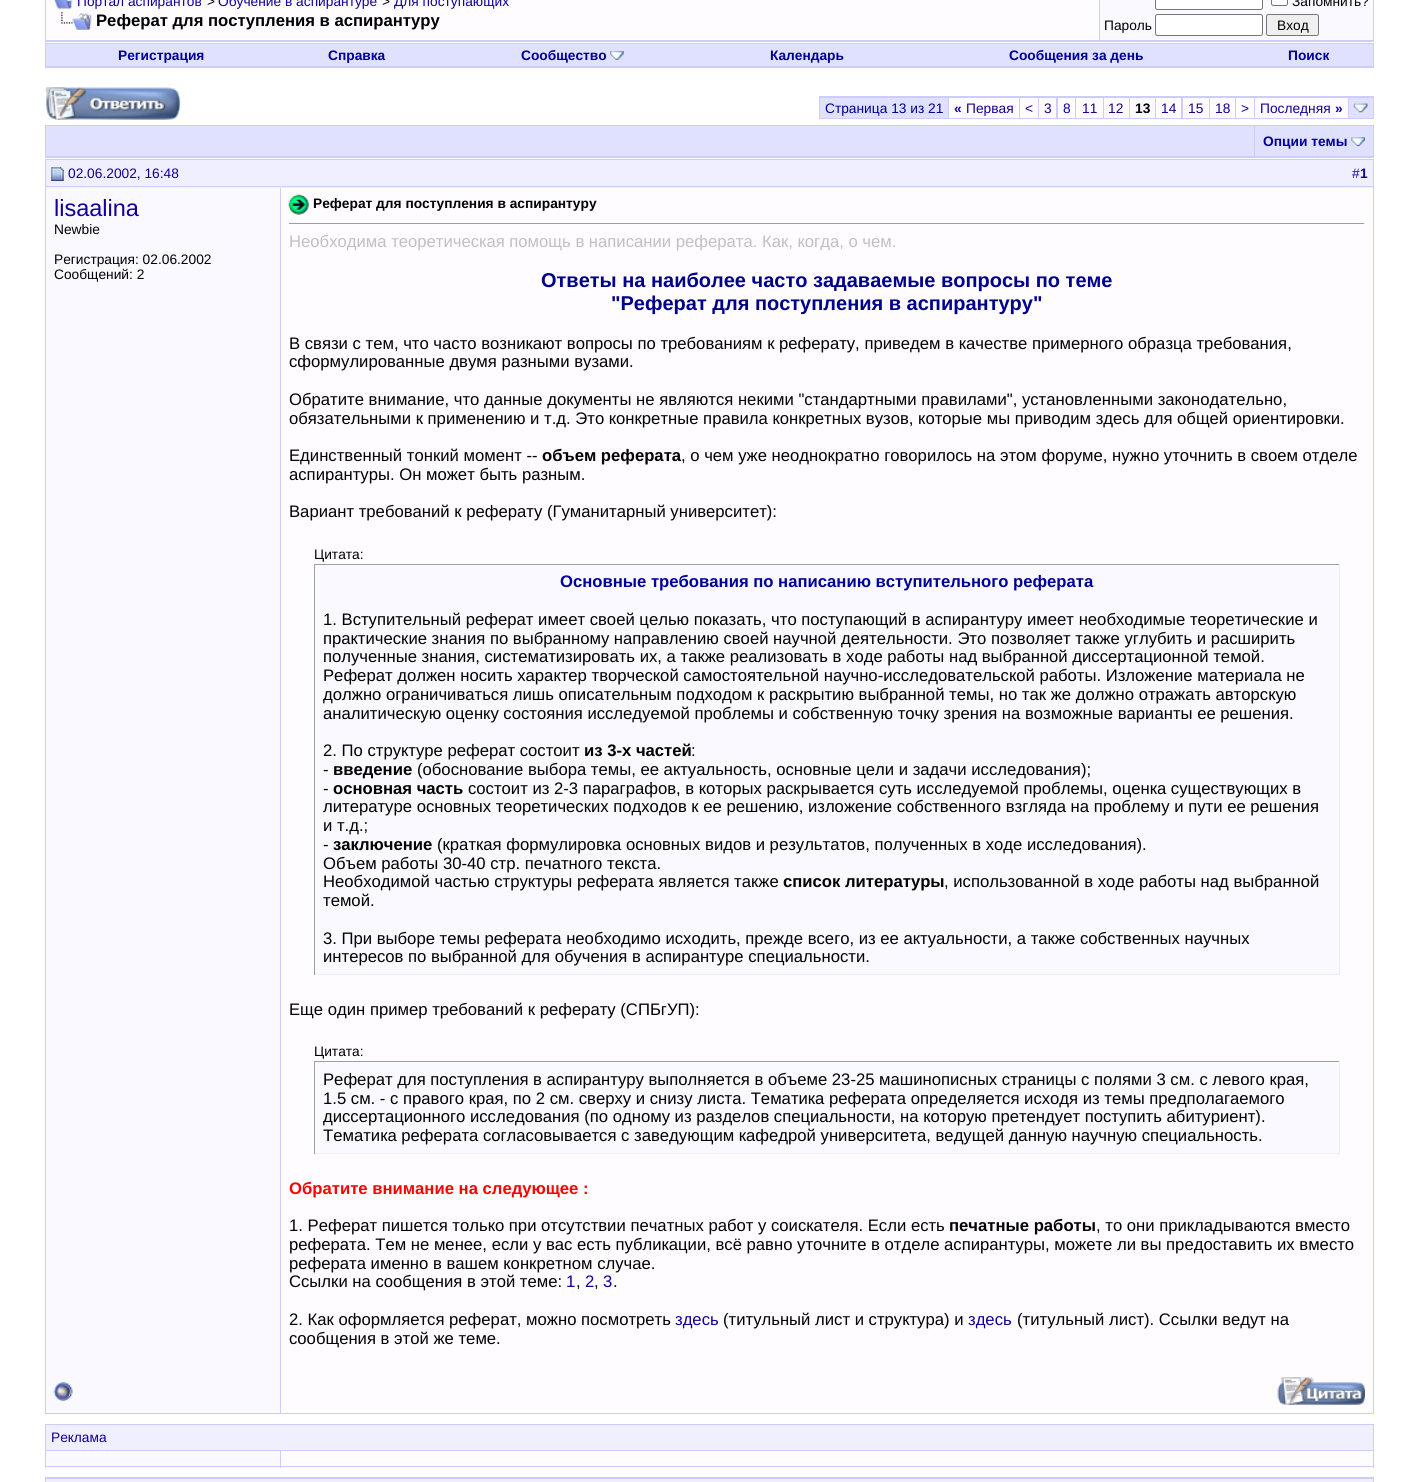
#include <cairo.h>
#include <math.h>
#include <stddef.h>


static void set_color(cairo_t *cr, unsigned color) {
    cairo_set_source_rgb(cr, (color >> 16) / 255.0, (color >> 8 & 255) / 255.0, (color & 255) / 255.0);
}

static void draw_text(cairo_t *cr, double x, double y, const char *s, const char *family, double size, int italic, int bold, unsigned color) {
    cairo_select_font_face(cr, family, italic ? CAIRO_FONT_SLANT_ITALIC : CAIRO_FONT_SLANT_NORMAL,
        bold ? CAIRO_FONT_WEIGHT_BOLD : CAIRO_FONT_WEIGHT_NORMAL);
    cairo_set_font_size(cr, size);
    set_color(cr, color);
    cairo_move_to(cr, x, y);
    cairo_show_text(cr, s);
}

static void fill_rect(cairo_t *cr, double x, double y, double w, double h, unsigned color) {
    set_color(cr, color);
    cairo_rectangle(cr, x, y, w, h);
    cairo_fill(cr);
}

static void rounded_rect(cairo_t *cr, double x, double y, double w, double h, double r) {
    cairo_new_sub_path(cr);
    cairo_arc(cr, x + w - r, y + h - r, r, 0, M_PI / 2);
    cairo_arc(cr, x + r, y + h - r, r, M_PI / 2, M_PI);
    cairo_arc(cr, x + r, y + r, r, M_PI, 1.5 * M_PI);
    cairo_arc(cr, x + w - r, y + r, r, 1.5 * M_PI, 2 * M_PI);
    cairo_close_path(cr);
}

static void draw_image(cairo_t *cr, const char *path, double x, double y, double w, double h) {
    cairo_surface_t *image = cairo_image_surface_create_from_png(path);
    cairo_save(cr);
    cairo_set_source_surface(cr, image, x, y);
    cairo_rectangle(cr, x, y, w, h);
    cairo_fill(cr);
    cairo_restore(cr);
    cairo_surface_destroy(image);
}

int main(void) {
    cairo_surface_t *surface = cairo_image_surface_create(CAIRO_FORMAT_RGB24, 1418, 1482);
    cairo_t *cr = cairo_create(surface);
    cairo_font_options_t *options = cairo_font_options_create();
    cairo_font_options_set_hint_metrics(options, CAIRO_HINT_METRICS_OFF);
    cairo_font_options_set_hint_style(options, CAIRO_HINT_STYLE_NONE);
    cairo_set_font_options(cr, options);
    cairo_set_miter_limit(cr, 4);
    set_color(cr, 0xFFFFFF);
    cairo_paint(cr);
    fill_rect(cr, 45, 0, 1329, 42, 0xCCCCFF);
    fill_rect(cr, 46, 0, 1053, 40, 0xFEFCFF);
    draw_image(cr, "assets/img1.png", 54, 0, 19, 9);
    draw_text(cr, 77, 6, "Портал аспирантов", "Liberation Sans", 13.75, 0, 0, 0x110099);
    draw_text(cr, 207, 6, ">", "Liberation Sans", 13.75, 0, 0, 0x000000);
    draw_text(cr, 218, 6, "Обучение в аспирантуре", "Liberation Sans", 13.75, 0, 0, 0x110099);
    draw_text(cr, 382, 6, ">", "Liberation Sans", 13.75, 0, 0, 0x000000);
    draw_text(cr, 394, 6, "Для поступающих", "Liberation Sans", 13.75, 0, 0, 0x110099);
    draw_image(cr, "assets/img2.png", 61, 12, 31, 18);
    draw_text(cr, 96, 26, "Реферат для поступления в аспирантуру", "Liberation Sans", 16.67, 0, 1, 0x000000);
    fill_rect(cr, 1100, 0, 273, 40, 0xF9F9FF);
    set_color(cr, 0xFFFFFF);
    rounded_rect(cr, 1155.5, -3.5, 107, 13, 2);
    cairo_fill_preserve(cr);
    set_color(cr, 0x767676);
    cairo_set_line_width(cr, 1);
    cairo_stroke(cr);
    set_color(cr, 0xFFFFFF);
    rounded_rect(cr, 1271.5, -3.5, 16, 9, 2);
    cairo_fill_preserve(cr);
    set_color(cr, 0x767676);
    cairo_stroke(cr);
    draw_text(cr, 1292, 6, "Запомнить?", "Liberation Sans", 13.75, 0, 0, 0x000000);
    draw_text(cr, 1104, 30, "Пароль", "Liberation Sans", 13.75, 0, 0, 0x000000);
    set_color(cr, 0xFFFFFF);
    rounded_rect(cr, 1155.5, 14.5, 107, 21, 2);
    cairo_fill_preserve(cr);
    set_color(cr, 0x767676);
    cairo_stroke(cr);
    set_color(cr, 0xEFEFEF);
    rounded_rect(cr, 1266.5, 14.5, 52, 21, 2);
    cairo_fill_preserve(cr);
    set_color(cr, 0x767676);
    cairo_stroke(cr);
    draw_text(cr, 1277, 30, "Вход", "Liberation Sans", 13.75, 0, 0, 0x000000);
    fill_rect(cr, 45, 43, 1329, 25, 0xCCCCFF);
    fill_rect(cr, 46, 44, 1327, 22, 0xE0E0FF);
    draw_text(cr, 118, 60, "Регистрация", "Liberation Sans", 13.75, 0, 1, 0x000099);
    draw_text(cr, 328, 60, "Справка", "Liberation Sans", 13.75, 0, 1, 0x000099);
    draw_text(cr, 521, 60, "Сообщество", "Liberation Sans", 13.75, 0, 1, 0x000099);
    draw_image(cr, "assets/img3.png", 610, 51, 14, 9);
    draw_text(cr, 770, 60, "Календарь", "Liberation Sans", 13.75, 0, 1, 0x000099);
    draw_text(cr, 1009, 60, "Сообщения за день", "Liberation Sans", 13.75, 0, 1, 0x000099);
    draw_text(cr, 1288, 60, "Поиск", "Liberation Sans", 13.75, 0, 1, 0x000099);
    draw_image(cr, "assets/img4.png", 45, 87, 136, 33);
    fill_rect(cr, 819, 96, 555, 23, 0xCCCCFF);
    fill_rect(cr, 820, 98, 128, 20, 0xE0E0FF);
    draw_text(cr, 825, 113, "Страница 13 из 21", "Liberation Sans", 13.75, 0, 0, 0x000099);
    fill_rect(cr, 949, 98, 70, 20, 0xFEFCFF);
    draw_text(cr, 954, 113, "«", "Liberation Sans", 13.75, 0, 1, 0x110099);
    draw_text(cr, 966, 113, "Первая", "Liberation Sans", 13.75, 0, 0, 0x110099);
    fill_rect(cr, 1020, 98, 18, 20, 0xFEFCFF);
    draw_text(cr, 1025, 113, "<", "Liberation Sans", 13.75, 0, 0, 0x110099);
    fill_rect(cr, 1039, 98, 17, 20, 0xFEFCFF);
    draw_text(cr, 1044, 113, "3", "Liberation Sans", 13.75, 0, 0, 0x110099);
    fill_rect(cr, 1058, 98, 17, 20, 0xFEFCFF);
    draw_text(cr, 1063, 113, "8", "Liberation Sans", 13.75, 0, 0, 0x110099);
    fill_rect(cr, 1076, 98, 27, 20, 0xFEFCFF);
    draw_text(cr, 1082, 113, "11", "Liberation Sans", 13.75, 0, 0, 0x110099);
    fill_rect(cr, 1104, 98, 25, 20, 0xFEFCFF);
    draw_text(cr, 1108, 113, "12", "Liberation Sans", 13.75, 0, 0, 0x110099);
    fill_rect(cr, 1130, 98, 25, 20, 0xF9F9FF);
    draw_text(cr, 1135, 113, "13", "Liberation Sans", 13.75, 0, 1, 0x000000);
    fill_rect(cr, 1156, 98, 25, 20, 0xFEFCFF);
    draw_text(cr, 1161, 113, "14", "Liberation Sans", 13.75, 0, 0, 0x110099);
    fill_rect(cr, 1183, 98, 26, 20, 0xFEFCFF);
    draw_text(cr, 1188, 113, "15", "Liberation Sans", 13.75, 0, 0, 0x110099);
    fill_rect(cr, 1210, 98, 25, 20, 0xFEFCFF);
    draw_text(cr, 1215, 113, "18", "Liberation Sans", 13.75, 0, 0, 0x110099);
    fill_rect(cr, 1236, 98, 18, 20, 0xFEFCFF);
    draw_text(cr, 1241, 113, ">", "Liberation Sans", 13.75, 0, 0, 0x110099);
    fill_rect(cr, 1255, 98, 93, 20, 0xFEFCFF);
    draw_text(cr, 1260, 113, "Последняя", "Liberation Sans", 13.75, 0, 0, 0x110099);
    draw_text(cr, 1335, 113, "»", "Liberation Sans", 13.75, 0, 1, 0x110099);
    fill_rect(cr, 1349, 98, 24, 20, 0xE0E0FF);
    draw_image(cr, "assets/img5.png", 1353, 103, 15, 10);
    fill_rect(cr, 45, 125, 1329, 33, 0xCCCCFF);
    fill_rect(cr, 46, 126, 1208, 30, 0xE0E0FF);
    fill_rect(cr, 1255, 126, 118, 30, 0xE0E0FF);
    draw_text(cr, 1263, 146, "Опции темы", "Liberation Sans", 13.75, 0, 1, 0x000099);
    draw_image(cr, "assets/img6.png", 1351, 137, 14, 9);
    fill_rect(cr, 46, 160, 1327, 28, 0xEFEFFF);
    fill_rect(cr, 45, 159, 1329, 1, 0xCCCCFF);
    fill_rect(cr, 45, 186, 236, 1, 0xCCCCFF);
    fill_rect(cr, 45, 159, 1, 1211, 0xCCCCFF);
    draw_image(cr, "assets/img7.png", 51, 167, 13, 14);
    draw_text(cr, 68, 178, "02.06.2002, 16:48", "Liberation Sans", 13.75, 0, 0, 0x110099);
    fill_rect(cr, 1373, 159, 1, 1255, 0xCCCCFF);
    fill_rect(cr, 281, 186, 1093, 1, 0xCCCCFF);
    draw_text(cr, 1352, 178, "#", "Liberation Sans", 13.75, 0, 0, 0x110099);
    draw_text(cr, 1360, 178, "1", "Liberation Sans", 13.75, 0, 1, 0x110099);
    fill_rect(cr, 46, 188, 234, 1225, 0xF9F9FF);
    fill_rect(cr, 280, 188, 1, 1226, 0xCCCCFF);
    draw_text(cr, 54, 216, "lisaalina", "Liberation Sans", 23.5, 0, 0, 0x110099);
    draw_text(cr, 54, 234, "Newbie", "Liberation Sans", 13.75, 0, 0, 0x000000);
    draw_text(cr, 54, 264, "Регистрация: 02.06.2002", "Liberation Sans", 13.75, 0, 0, 0x000000);
    draw_text(cr, 54, 279, "Сообщений: 2", "Liberation Sans", 13.75, 0, 0, 0x000000);
    fill_rect(cr, 281, 188, 1092, 1225, 0xFEFCFF);
    draw_image(cr, "assets/img8.png", 288, 194, 21, 21);
    draw_text(cr, 313, 208, "Реферат для поступления в аспирантуру", "Liberation Sans", 13.75, 0, 1, 0x000000);
    fill_rect(cr, 289, 223, 1076, 1, 0x9F9F9F);
    fill_rect(cr, 1364, 223, 1, 1, 0xEEEEEE);
    draw_text(cr, 289, 247, "Необходима теоретическая помощь в написании реферата. Как, когда, о чем.", "Liberation Sans", 16.67, 0, 0, 0xC0C0C0);
    draw_text(cr, 541, 287, "Ответы на наиболее часто задаваемые вопросы по теме", "Liberation Sans", 20, 0, 1, 0x000088);
    draw_text(cr, 611, 310, "\"Реферат для поступления в аспирантуру\"", "Liberation Sans", 20, 0, 1, 0x000088);
    draw_text(cr, 289, 349, "В связи с тем, что часто возникают вопросы по требованиям к реферату, приведем в качестве примерного образца требования,", "Liberation Sans", 16.67, 0, 0, 0x000000);
    draw_text(cr, 289, 367, "сформулированные двумя разными вузами.", "Liberation Sans", 16.67, 0, 0, 0x000000);
    draw_text(cr, 289, 405, "Обратите внимание, что данные документы не являются некими \"стандартными правилами\", установленными законодательно,", "Liberation Sans", 16.67, 0, 0, 0x000000);
    draw_text(cr, 289, 424, "обязательными к применению и т.д. Это конкретные правила конкретных вузов, которые мы приводим здесь для общей ориентировки.", "Liberation Sans", 16.67, 0, 0, 0x000000);
    draw_text(cr, 289, 461, "Единственный тонкий момент --", "Liberation Sans", 16.67, 0, 0, 0x000000);
    draw_text(cr, 542, 461, "объем реферата", "Liberation Sans", 16.67, 0, 1, 0x000000);
    draw_text(cr, 681, 461, ", о чем уже неоднократно говорилось на этом форуме, нужно уточнить в своем отделе", "Liberation Sans", 16.67, 0, 0, 0x000000);
    draw_text(cr, 289, 480, "аспирантуры. Он может быть разным.", "Liberation Sans", 16.67, 0, 0, 0x000000);
    draw_text(cr, 289, 517, "Вариант требований к реферату (Гуманитарный университет):", "Liberation Sans", 16.67, 0, 0, 0x000000);
    draw_text(cr, 314, 559, "Цитата:", "Liberation Sans", 13.75, 0, 0, 0x000000);
    fill_rect(cr, 315, 565, 1024, 409, 0xF9F9FF);
    fill_rect(cr, 314, 564, 1026, 1, 0x9F9F9F);
    fill_rect(cr, 1339, 564, 1, 411, 0xEEEEEE);
    fill_rect(cr, 314, 974, 1026, 1, 0xEEEEEE);
    fill_rect(cr, 314, 564, 1, 411, 0x9F9F9F);
    draw_text(cr, 560, 587, "Основные требования по написанию вступительного реферата", "Liberation Sans", 16.67, 0, 1, 0x000099);
    draw_text(cr, 323, 625, "1. Вступительный реферат имеет своей целью показать, что поступающий в аспирантуру имеет необходимые теоретические и", "Liberation Sans", 16.67, 0, 0, 0x000000);
    draw_text(cr, 323, 644, "практические знания по выбранному направлению своей научной деятельности. Это позволяет также углубить и расширить", "Liberation Sans", 16.67, 0, 0, 0x000000);
    draw_text(cr, 323, 662, "полученные знания, систематизировать их, а также реализовать в ходе работы над выбранной диссертационной темой.", "Liberation Sans", 16.67, 0, 0, 0x000000);
    draw_text(cr, 323, 681, "Реферат должен носить характер творческой самостоятельной научно-исследовательской работы. Изложение материала не", "Liberation Sans", 16.67, 0, 0, 0x000000);
    draw_text(cr, 323, 700, "должно ограничиваться лишь описательным подходом к раскрытию выбранной темы, но так же должно отражать авторскую", "Liberation Sans", 16.67, 0, 0, 0x000000);
    draw_text(cr, 323, 719, "аналитическую оценку состояния исследуемой проблемы и собственную точку зрения на возможные варианты ее решения.", "Liberation Sans", 16.67, 0, 0, 0x000000);
    draw_text(cr, 323, 756, "2. По структуре реферат состоит", "Liberation Sans", 16.67, 0, 0, 0x000000);
    draw_text(cr, 584, 756, "из 3-х частей", "Liberation Sans", 16.67, 0, 1, 0x000000);
    draw_text(cr, 691, 756, ":", "Liberation Sans", 16.67, 0, 0, 0x000000);
    draw_text(cr, 323, 775, "-", "Liberation Sans", 16.67, 0, 0, 0x000000);
    draw_text(cr, 333, 775, "введение", "Liberation Sans", 16.67, 0, 1, 0x000000);
    draw_text(cr, 417, 775, "(обоснование выбора темы, ее актуальность, основные цели и задачи исследования);", "Liberation Sans", 16.67, 0, 0, 0x000000);
    draw_text(cr, 323, 794, "-", "Liberation Sans", 16.67, 0, 0, 0x000000);
    draw_text(cr, 333, 794, "основная часть", "Liberation Sans", 16.67, 0, 1, 0x000000);
    draw_text(cr, 468, 794, "состоит из 2-3 параграфов, в которых раскрывается суть исследуемой проблемы, оценка существующих в", "Liberation Sans", 16.67, 0, 0, 0x000000);
    draw_text(cr, 323, 812, "литературе основных теоретических подходов к ее решению, изложение собственного взгляда на проблему и пути ее решения", "Liberation Sans", 16.67, 0, 0, 0x000000);
    draw_text(cr, 323, 831, "и т.д.;", "Liberation Sans", 16.67, 0, 0, 0x000000);
    draw_text(cr, 323, 850, "-", "Liberation Sans", 16.67, 0, 0, 0x000000);
    draw_text(cr, 333, 850, "заключение", "Liberation Sans", 16.67, 0, 1, 0x000000);
    draw_text(cr, 437, 850, "(краткая формулировка основных видов и результатов, полученных в ходе исследования).", "Liberation Sans", 16.67, 0, 0, 0x000000);
    draw_text(cr, 323, 869, "Объем работы 30-40 стр. печатного текста.", "Liberation Sans", 16.67, 0, 0, 0x000000);
    draw_text(cr, 323, 887, "Необходимой частью структуры реферата является также", "Liberation Sans", 16.67, 0, 0, 0x000000);
    draw_text(cr, 783, 887, "список литературы", "Liberation Sans", 16.67, 0, 1, 0x000000);
    draw_text(cr, 944, 887, ", использованной в ходе работы над выбранной", "Liberation Sans", 16.67, 0, 0, 0x000000);
    draw_text(cr, 323, 906, "темой.", "Liberation Sans", 16.67, 0, 0, 0x000000);
    draw_text(cr, 323, 944, "3. При выборе темы реферата необходимо исходить, прежде всего, из ее актуальности, а также собственных научных", "Liberation Sans", 16.67, 0, 0, 0x000000);
    draw_text(cr, 323, 962, "интересов по выбранной для обучения в аспирантуре специальности.", "Liberation Sans", 16.67, 0, 0, 0x000000);
    draw_text(cr, 289, 1015, "Еще один пример требований к реферату (СПБгУП):", "Liberation Sans", 16.67, 0, 0, 0x000000);
    draw_text(cr, 314, 1056, "Цитата:", "Liberation Sans", 13.75, 0, 0, 0x000000);
    fill_rect(cr, 315, 1062, 1024, 91, 0xF9F9FF);
    fill_rect(cr, 314, 1061, 1026, 1, 0x9F9F9F);
    fill_rect(cr, 1339, 1061, 1, 93, 0xEEEEEE);
    fill_rect(cr, 314, 1153, 1026, 1, 0xEEEEEE);
    fill_rect(cr, 314, 1061, 1, 93, 0x9F9F9F);
    draw_text(cr, 323, 1085, "Реферат для поступления в аспирантуру выполняется в объеме 23-25 машинописных страницы с полями 3 см. с левого края,", "Liberation Sans", 16.67, 0, 0, 0x000000);
    draw_text(cr, 323, 1104, "1.5 см. - с правого края, по 2 см. сверху и снизу листа. Тематика реферата определяется исходя из темы предполагаемого", "Liberation Sans", 16.67, 0, 0, 0x000000);
    draw_text(cr, 323, 1122, "диссертационного исследования (по одному из разделов специальности, на которую претендует поступить абитуриент).", "Liberation Sans", 16.67, 0, 0, 0x000000);
    draw_text(cr, 323, 1141, "Тематика реферата согласовывается с заведующим кафедрой университета, ведущей данную научную специальность.", "Liberation Sans", 16.67, 0, 0, 0x000000);
    draw_text(cr, 289, 1194, "Обратите внимание на следующее :", "Liberation Sans", 16.67, 0, 1, 0xFF0000);
    draw_text(cr, 289, 1231, "1. Реферат пишется только при отсутствии печатных работ у соискателя. Если есть", "Liberation Sans", 16.67, 0, 0, 0x000000);
    draw_text(cr, 949, 1231, "печатные работы", "Liberation Sans", 16.67, 0, 1, 0x000000);
    draw_text(cr, 1096, 1231, ", то они прикладываются вместо", "Liberation Sans", 16.67, 0, 0, 0x000000);
    draw_text(cr, 289, 1250, "реферата. Тем не менее, если у вас есть публикации, всё равно уточните в отделе аспирантуры, можете ли вы предоставить их вместо", "Liberation Sans", 16.67, 0, 0, 0x000000);
    draw_text(cr, 289, 1269, "реферата именно в вашем конкретном случае.", "Liberation Sans", 16.67, 0, 0, 0x000000);
    draw_text(cr, 289, 1287, "Ссылки на сообщения в этой теме:", "Liberation Sans", 16.67, 0, 0, 0x000000);
    draw_text(cr, 566, 1287, "1", "Liberation Sans", 16.67, 0, 0, 0x110099);
    draw_text(cr, 576, 1287, ",", "Liberation Sans", 16.67, 0, 0, 0x000000);
    draw_text(cr, 585, 1287, "2", "Liberation Sans", 16.67, 0, 0, 0x110099);
    draw_text(cr, 594, 1287, ",", "Liberation Sans", 16.67, 0, 0, 0x000000);
    draw_text(cr, 603, 1287, "3", "Liberation Sans", 16.67, 0, 0, 0x110099);
    draw_text(cr, 613, 1287, ".", "Liberation Sans", 16.67, 0, 0, 0x000000);
    draw_text(cr, 289, 1325, "2. Как оформляется реферат, можно посмотреть", "Liberation Sans", 16.67, 0, 0, 0x000000);
    draw_text(cr, 675, 1325, "здесь", "Liberation Sans", 16.67, 0, 0, 0x110099);
    draw_text(cr, 723, 1325, "(титульный лист и структура) и", "Liberation Sans", 16.67, 0, 0, 0x000000);
    draw_text(cr, 968, 1325, "здесь", "Liberation Sans", 16.67, 0, 0, 0x110099);
    draw_text(cr, 1017, 1325, "(титульный лист). Ссылки ведут на", "Liberation Sans", 16.67, 0, 0, 0x000000);
    draw_text(cr, 289, 1344, "сообщения в этой же теме.", "Liberation Sans", 16.67, 0, 0, 0x000000);
    fill_rect(cr, 45, 1413, 1329, 1, 0xCCCCFF);
    fill_rect(cr, 45, 1370, 1, 44, 0xCCCCFF);
    draw_image(cr, "assets/img9.png", 53, 1382, 20, 19);
    draw_image(cr, "assets/img10.png", 1277, 1377, 88, 28);
    set_color(cr, 0xEFEFFF);
    cairo_rectangle(cr, 45.5, 1424.5, 1328, 26);
    cairo_fill_preserve(cr);
    set_color(cr, 0xCCCCFF);
    cairo_stroke(cr);
    draw_text(cr, 51, 1442, "Реклама", "Liberation Sans", 13.75, 0, 0, 0x110099);
    fill_rect(cr, 46, 1451, 234, 17, 0xF9F9FF);
    fill_rect(cr, 45, 1466, 235, 1, 0xCCCCFF);
    fill_rect(cr, 45, 1451, 1, 17, 0xCCCCFF);
    fill_rect(cr, 281, 1451, 1092, 17, 0xFEFCFF);
    fill_rect(cr, 1373, 1451, 1, 17, 0xCCCCFF);
    fill_rect(cr, 280, 1466, 1094, 1, 0xCCCCFF);
    fill_rect(cr, 280, 1451, 1, 17, 0xCCCCFF);
    fill_rect(cr, 44, 1477, 1331, 1, 0xCCCCFF);
    cairo_rectangle(cr, 44.5, 1476.5, 1330, 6);
    set_color(cr, 0xFFFFFF);
    cairo_stroke(cr);
    fill_rect(cr, 45, 1479, 1329, 3, 0xEFEFFF);
    fill_rect(cr, 45, 1478, 1329, 1, 0xCCCCFF);
    fill_rect(cr, 45, 1478, 1, 4, 0xCCCCFF);
    fill_rect(cr, 1373, 1478, 1, 4, 0xCCCCFF);
    cairo_surface_write_to_png(surface, "output.png");
    cairo_font_options_destroy(options);
    cairo_destroy(cr);
    cairo_surface_destroy(surface);
    return 0;
}
